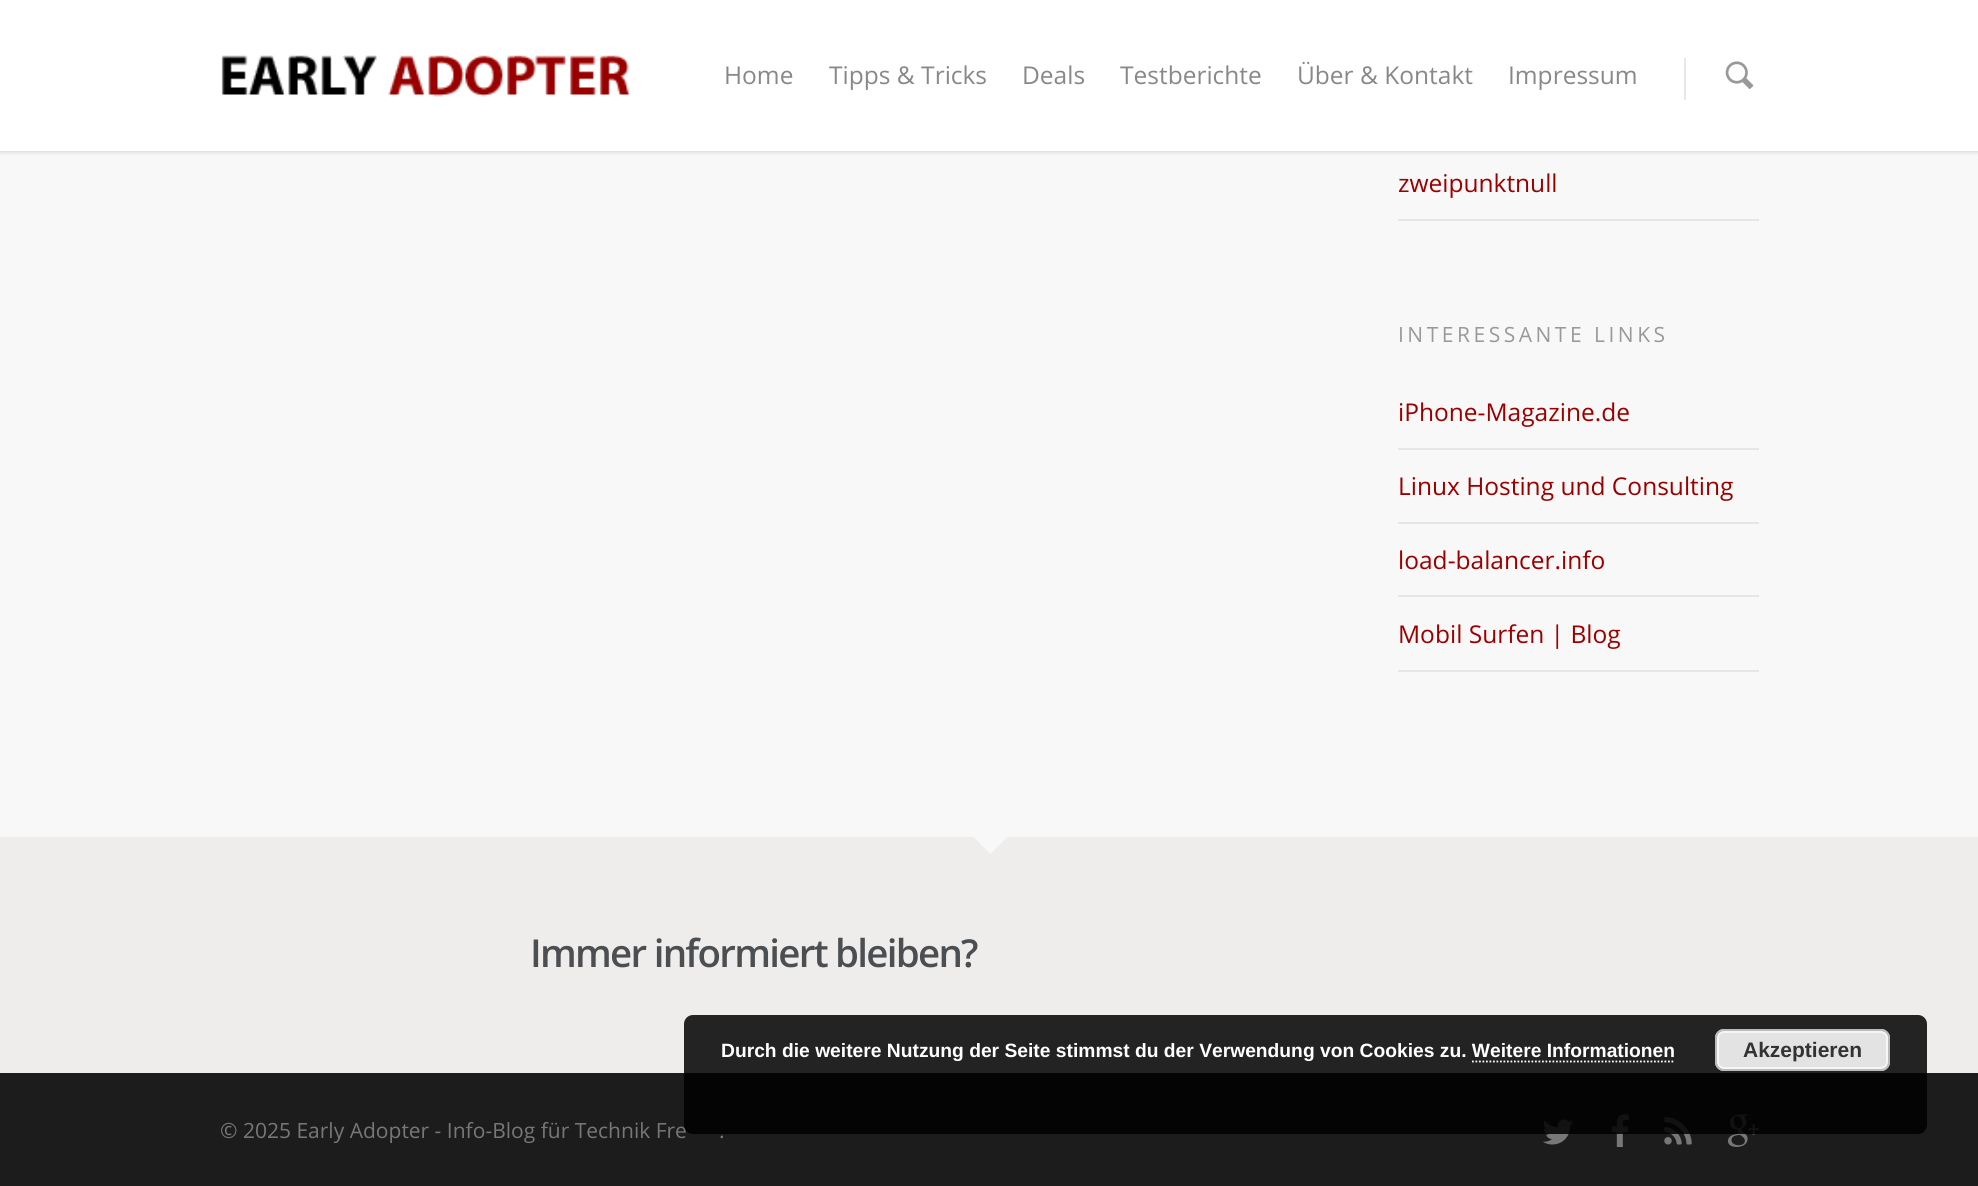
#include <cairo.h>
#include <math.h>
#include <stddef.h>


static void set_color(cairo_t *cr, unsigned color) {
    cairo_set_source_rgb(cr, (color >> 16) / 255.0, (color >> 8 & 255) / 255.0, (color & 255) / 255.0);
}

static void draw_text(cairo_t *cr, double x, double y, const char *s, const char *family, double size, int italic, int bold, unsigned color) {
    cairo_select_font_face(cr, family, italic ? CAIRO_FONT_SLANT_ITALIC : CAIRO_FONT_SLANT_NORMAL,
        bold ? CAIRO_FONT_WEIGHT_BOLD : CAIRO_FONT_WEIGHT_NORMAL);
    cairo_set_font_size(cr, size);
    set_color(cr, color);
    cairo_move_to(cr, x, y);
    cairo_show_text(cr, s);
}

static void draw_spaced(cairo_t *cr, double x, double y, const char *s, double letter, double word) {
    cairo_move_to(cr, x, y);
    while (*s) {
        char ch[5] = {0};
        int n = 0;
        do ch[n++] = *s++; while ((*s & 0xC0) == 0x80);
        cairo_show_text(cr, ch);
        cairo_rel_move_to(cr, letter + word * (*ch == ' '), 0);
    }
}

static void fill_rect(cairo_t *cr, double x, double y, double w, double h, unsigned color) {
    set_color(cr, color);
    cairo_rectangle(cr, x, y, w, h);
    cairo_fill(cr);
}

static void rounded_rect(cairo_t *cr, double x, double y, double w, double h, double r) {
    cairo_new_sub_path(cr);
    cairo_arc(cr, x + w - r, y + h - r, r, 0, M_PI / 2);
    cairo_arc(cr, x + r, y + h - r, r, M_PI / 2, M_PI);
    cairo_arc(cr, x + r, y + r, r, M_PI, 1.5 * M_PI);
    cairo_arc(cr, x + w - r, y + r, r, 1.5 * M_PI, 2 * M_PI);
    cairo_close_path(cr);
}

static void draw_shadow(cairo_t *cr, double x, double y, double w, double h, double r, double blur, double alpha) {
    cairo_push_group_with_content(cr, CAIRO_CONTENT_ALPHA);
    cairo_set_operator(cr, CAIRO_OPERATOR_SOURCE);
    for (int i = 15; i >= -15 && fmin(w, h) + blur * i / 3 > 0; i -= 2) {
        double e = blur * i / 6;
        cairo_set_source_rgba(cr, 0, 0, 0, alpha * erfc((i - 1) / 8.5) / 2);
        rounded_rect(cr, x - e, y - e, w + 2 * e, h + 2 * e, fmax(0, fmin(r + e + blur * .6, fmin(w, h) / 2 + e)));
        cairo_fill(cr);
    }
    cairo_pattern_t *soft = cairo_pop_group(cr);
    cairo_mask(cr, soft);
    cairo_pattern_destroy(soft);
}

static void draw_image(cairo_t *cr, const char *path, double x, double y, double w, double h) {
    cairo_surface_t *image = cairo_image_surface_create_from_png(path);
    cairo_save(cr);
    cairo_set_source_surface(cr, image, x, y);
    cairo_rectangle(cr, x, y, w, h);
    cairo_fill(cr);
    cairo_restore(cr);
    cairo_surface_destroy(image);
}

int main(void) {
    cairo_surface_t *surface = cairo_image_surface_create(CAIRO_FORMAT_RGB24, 1978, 1186);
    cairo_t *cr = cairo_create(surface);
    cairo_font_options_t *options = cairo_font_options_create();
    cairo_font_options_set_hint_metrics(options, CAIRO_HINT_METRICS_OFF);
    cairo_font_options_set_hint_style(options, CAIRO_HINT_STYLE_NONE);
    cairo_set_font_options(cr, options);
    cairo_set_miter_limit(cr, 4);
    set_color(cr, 0xF8F8F8);
    cairo_paint(cr);
    set_color(cr, 0x000000);
    draw_shadow(cr, 0, 0, 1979, 151, 0, 2.5, 0.22);
    fill_rect(cr, 0, 0, 1978, 151, 0xFFFFFF);
    draw_image(cr, "assets/img1.png", 221, 55, 410, 42);
    draw_text(cr, 724, 84, "Home", "Open Sans", 24.5, 0, 0, 0x888888);
    draw_text(cr, 829, 84, "Tipps & Tricks", "Open Sans", 24.5, 0, 0, 0x888888);
    draw_text(cr, 1022, 84, "Deals", "Open Sans", 24.5, 0, 0, 0x888888);
    draw_text(cr, 1120, 84, "Testberichte", "Open Sans", 24.5, 0, 0, 0x888888);
    draw_text(cr, 1297, 84, "Über & Kontakt", "Open Sans", 24.5, 0, 0, 0x888888);
    draw_text(cr, 1508, 84, "Impressum", "Open Sans", 24.5, 0, 0, 0x888888);
    fill_rect(cr, 1684, 58, 2, 42, 0xE7E7E7);
    draw_image(cr, "assets/img2.png", 1725, 61, 29, 28);
    fill_rect(cr, 1398, 219, 361, 2, 0xE6E6E6);
    draw_text(cr, 1398, 192, "zweipunktnull", "Open Sans", 24.5, 0, 0, 0x990000);
    cairo_set_font_size(cr, 21);
    set_color(cr, 0x999999);
    draw_spaced(cr, 1398, 342, "INTERESSANTE LINKS", 3.5, 0);
    fill_rect(cr, 1398, 448, 361, 2, 0xE6E6E6);
    draw_text(cr, 1398, 421, "iPhone-Magazine.de", "Open Sans", 24.5, 0, 0, 0x990000);
    fill_rect(cr, 1398, 522, 361, 2, 0xE6E6E6);
    draw_text(cr, 1398, 495, "Linux Hosting und Consulting", "Open Sans", 24.5, 0, 0, 0x990000);
    fill_rect(cr, 1398, 595, 361, 2, 0xE6E6E6);
    draw_text(cr, 1398, 569, "load-balancer.info", "Open Sans", 24.5, 0, 0, 0x990000);
    fill_rect(cr, 1398, 670, 361, 2, 0xE6E6E6);
    draw_text(cr, 1398, 643, "Mobil Surfen | Blog", "Open Sans", 24.5, 0, 0, 0x990000);
    fill_rect(cr, 0, 837, 1978, 236, 0xEEEDEC);
    set_color(cr, 0xF8F8F8);
    cairo_new_path(cr);
    cairo_move_to(cr, 973, 836.5);
    cairo_line_to(cr, 1008, 836.5);
    cairo_line_to(cr, 990.5, 854);
    cairo_close_path(cr);
    cairo_fill(cr);
    cairo_select_font_face(cr, "Open Sans SemiBold", CAIRO_FONT_SLANT_NORMAL, CAIRO_FONT_WEIGHT_NORMAL);
    cairo_set_font_size(cr, 38.5);
    set_color(cr, 0x4B4F52);
    draw_spaced(cr, 530, 967, "Immer informiert bleiben?", -1.75, 0);
    fill_rect(cr, 0, 1073, 1978, 113, 0x1C1C1C);
    draw_text(cr, 220, 1138, "© 2025 Early Adopter - Info-Blog für Technik Fre", "Open Sans", 21, 0, 0, 0x777777);
    draw_text(cr, 719, 1138, ".", "Open Sans", 21, 0, 0, 0x777777);
    draw_image(cr, "assets/img3.png", 1543, 1119, 31, 26);
    draw_image(cr, "assets/img4.png", 1611, 1114, 18, 33);
    draw_image(cr, "assets/img5.png", 1664, 1117, 28, 28);
    draw_image(cr, "assets/img6.png", 1727, 1114, 32, 33);
    cairo_set_source_rgba(cr, 0, 0, 0, 0.85);
    rounded_rect(cr, 684, 1015, 1243, 119, 9);
    cairo_fill(cr);
    draw_text(cr, 721, 1057, "Durch die weitere Nutzung der Seite stimmst du der Verwendung von Cookies zu. Weitere Informationen", "Liberation Sans", 19.25, 0, 1, 0xFFFFFF);
    set_color(cr, 0xE3E3E3);
    rounded_rect(cr, 1715, 1029, 175, 42, 9);
    cairo_fill(cr);
    rounded_rect(cr, 1718, 1032, 169, 36, 6);
    set_color(cr, 0xF6F6F6);
    cairo_stroke(cr);
    rounded_rect(cr, 1716, 1030, 173, 40, 8);
    set_color(cr, 0xBBBBBB);
    cairo_stroke(cr);
    draw_text(cr, 1743, 1057, "Akzeptieren", "Liberation Sans", 21, 0, 1, 0x333333);
    cairo_new_path(cr);
    cairo_move_to(cr, 1472, 1061.5);
    cairo_line_to(cr, 1675, 1061.5);
    set_color(cr, 0xFFFFFF);
    cairo_set_line_width(cr, 1.8);
    cairo_set_dash(cr, (double[]){1.75, 1.75}, 2, 0);
    cairo_stroke(cr);
    cairo_surface_write_to_png(surface, "output.png");
    cairo_font_options_destroy(options);
    cairo_destroy(cr);
    cairo_surface_destroy(surface);
    return 0;
}
